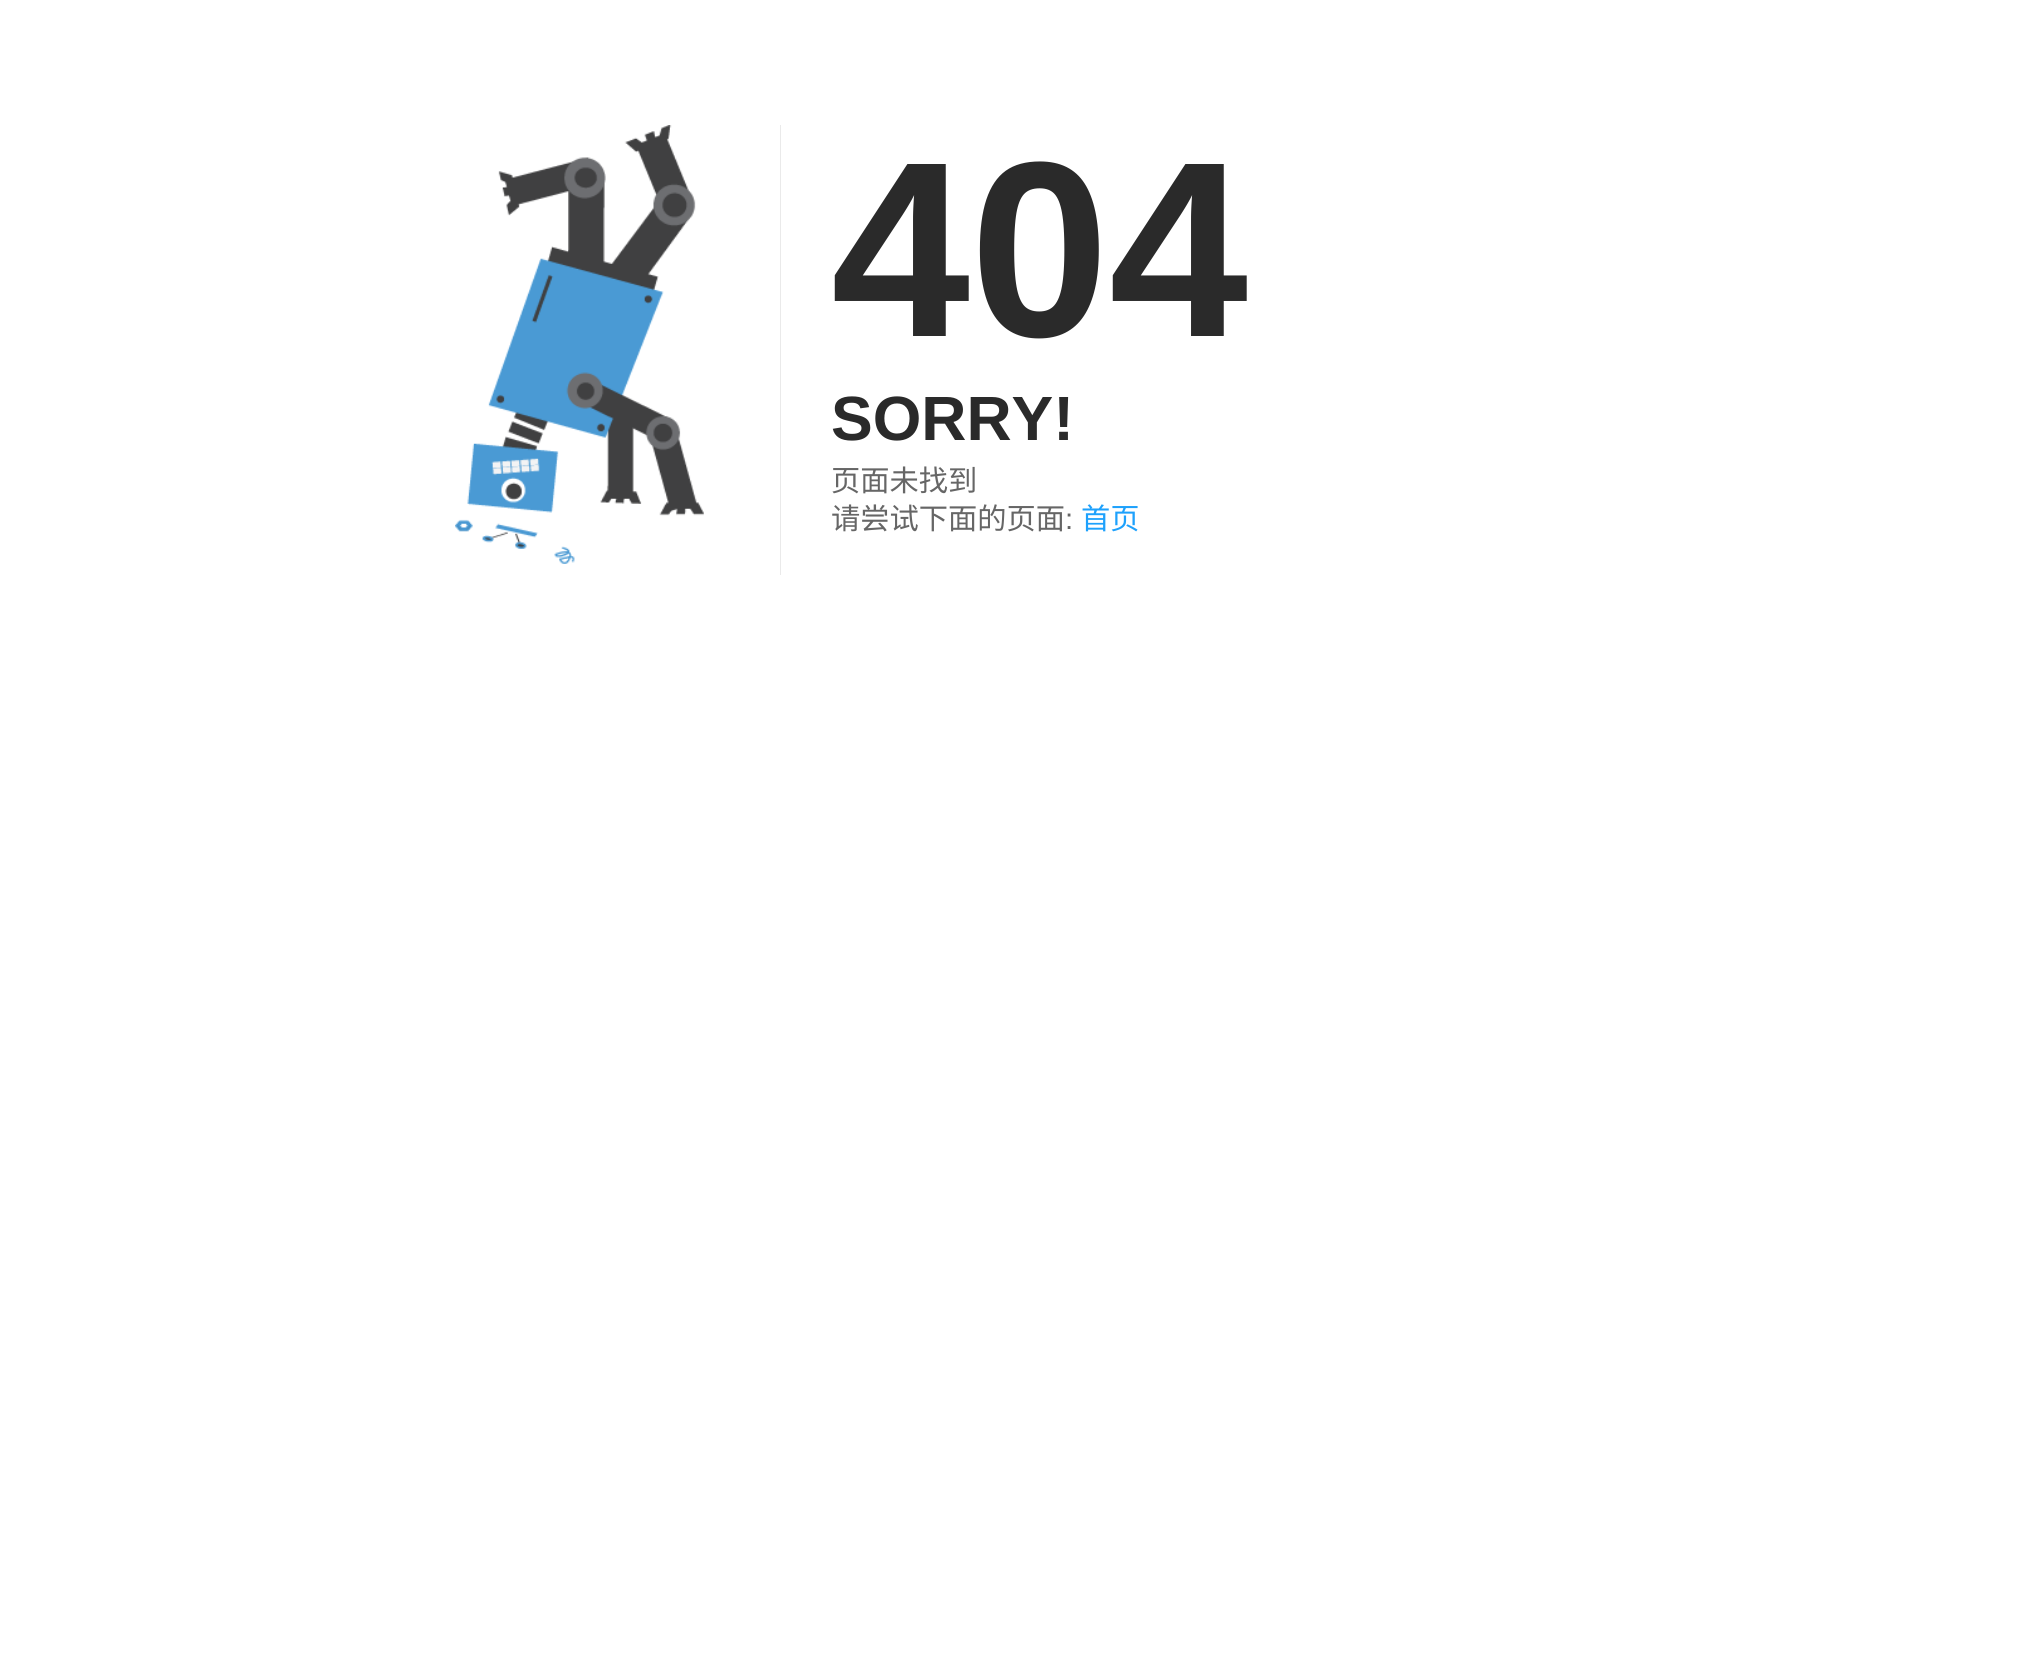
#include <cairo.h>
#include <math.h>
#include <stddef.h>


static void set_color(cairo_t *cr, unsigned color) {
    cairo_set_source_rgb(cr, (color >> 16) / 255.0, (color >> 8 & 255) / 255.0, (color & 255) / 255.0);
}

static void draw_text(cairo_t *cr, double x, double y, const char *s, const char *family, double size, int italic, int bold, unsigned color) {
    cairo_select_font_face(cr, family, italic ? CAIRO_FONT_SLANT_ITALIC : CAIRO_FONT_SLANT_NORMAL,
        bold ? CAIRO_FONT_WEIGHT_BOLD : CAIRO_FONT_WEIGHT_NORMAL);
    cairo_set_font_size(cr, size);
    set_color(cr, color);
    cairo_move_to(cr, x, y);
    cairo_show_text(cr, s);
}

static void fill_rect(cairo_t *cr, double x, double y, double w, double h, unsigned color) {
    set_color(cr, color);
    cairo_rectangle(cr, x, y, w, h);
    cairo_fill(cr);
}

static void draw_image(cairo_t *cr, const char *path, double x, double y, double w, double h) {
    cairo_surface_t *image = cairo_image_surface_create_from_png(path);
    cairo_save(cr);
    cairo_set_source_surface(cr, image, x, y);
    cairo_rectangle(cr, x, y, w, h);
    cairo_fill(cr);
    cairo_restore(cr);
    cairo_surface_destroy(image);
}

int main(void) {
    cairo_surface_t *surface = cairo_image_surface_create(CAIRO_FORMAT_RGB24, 2026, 1653);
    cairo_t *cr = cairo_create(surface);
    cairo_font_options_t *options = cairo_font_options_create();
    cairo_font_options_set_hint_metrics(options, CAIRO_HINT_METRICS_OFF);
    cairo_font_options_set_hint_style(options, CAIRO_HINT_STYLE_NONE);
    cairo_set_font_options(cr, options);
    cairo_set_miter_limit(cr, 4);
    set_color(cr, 0xFFFFFF);
    cairo_paint(cr);
    draw_image(cr, "assets/img1.png", 455, 125, 249, 439);
    fill_rect(cr, 780, 125, 1, 450, 0xEAEAEA);
    draw_text(cr, 831, 336, "404", "Liberation Sans", 250, 0, 1, 0x2A2A2A);
    draw_text(cr, 831, 440, "SORRY!", "Liberation Sans", 62.5, 0, 1, 0x2A2A2A);
    draw_text(cr, 831, 491, "页面未找到", "Noto Sans CJK SC", 29.25, 0, 0, 0x666666);
    draw_text(cr, 831, 529, "请尝试下面的页面", "Noto Sans CJK SC", 29.25, 0, 0, 0x666666);
    draw_text(cr, 1065, 529, ":", "Liberation Sans", 29.25, 0, 0, 0x666666);
    draw_text(cr, 1081, 529, "首页", "Noto Sans CJK SC", 29.25, 0, 0, 0x1EA1FC);
    cairo_surface_write_to_png(surface, "output.png");
    cairo_font_options_destroy(options);
    cairo_destroy(cr);
    cairo_surface_destroy(surface);
    return 0;
}
